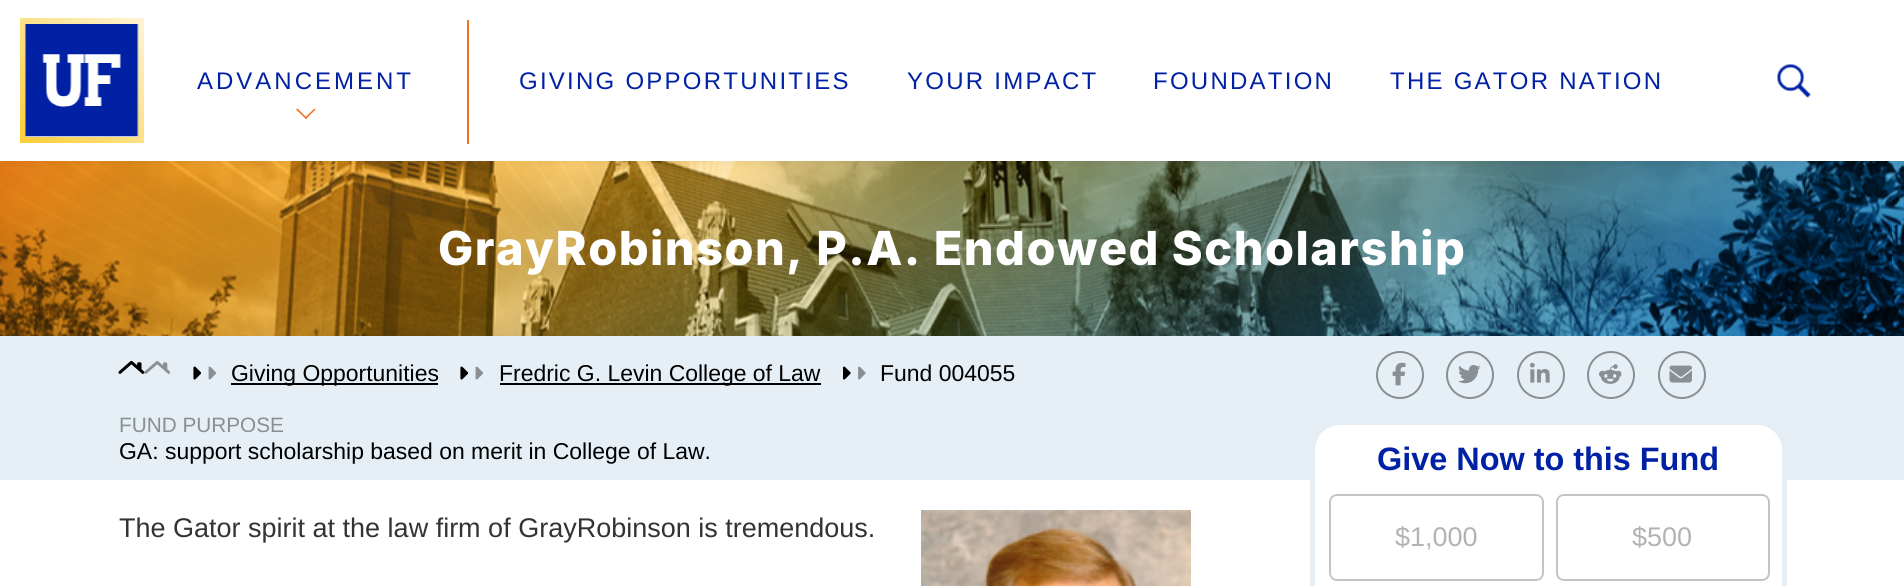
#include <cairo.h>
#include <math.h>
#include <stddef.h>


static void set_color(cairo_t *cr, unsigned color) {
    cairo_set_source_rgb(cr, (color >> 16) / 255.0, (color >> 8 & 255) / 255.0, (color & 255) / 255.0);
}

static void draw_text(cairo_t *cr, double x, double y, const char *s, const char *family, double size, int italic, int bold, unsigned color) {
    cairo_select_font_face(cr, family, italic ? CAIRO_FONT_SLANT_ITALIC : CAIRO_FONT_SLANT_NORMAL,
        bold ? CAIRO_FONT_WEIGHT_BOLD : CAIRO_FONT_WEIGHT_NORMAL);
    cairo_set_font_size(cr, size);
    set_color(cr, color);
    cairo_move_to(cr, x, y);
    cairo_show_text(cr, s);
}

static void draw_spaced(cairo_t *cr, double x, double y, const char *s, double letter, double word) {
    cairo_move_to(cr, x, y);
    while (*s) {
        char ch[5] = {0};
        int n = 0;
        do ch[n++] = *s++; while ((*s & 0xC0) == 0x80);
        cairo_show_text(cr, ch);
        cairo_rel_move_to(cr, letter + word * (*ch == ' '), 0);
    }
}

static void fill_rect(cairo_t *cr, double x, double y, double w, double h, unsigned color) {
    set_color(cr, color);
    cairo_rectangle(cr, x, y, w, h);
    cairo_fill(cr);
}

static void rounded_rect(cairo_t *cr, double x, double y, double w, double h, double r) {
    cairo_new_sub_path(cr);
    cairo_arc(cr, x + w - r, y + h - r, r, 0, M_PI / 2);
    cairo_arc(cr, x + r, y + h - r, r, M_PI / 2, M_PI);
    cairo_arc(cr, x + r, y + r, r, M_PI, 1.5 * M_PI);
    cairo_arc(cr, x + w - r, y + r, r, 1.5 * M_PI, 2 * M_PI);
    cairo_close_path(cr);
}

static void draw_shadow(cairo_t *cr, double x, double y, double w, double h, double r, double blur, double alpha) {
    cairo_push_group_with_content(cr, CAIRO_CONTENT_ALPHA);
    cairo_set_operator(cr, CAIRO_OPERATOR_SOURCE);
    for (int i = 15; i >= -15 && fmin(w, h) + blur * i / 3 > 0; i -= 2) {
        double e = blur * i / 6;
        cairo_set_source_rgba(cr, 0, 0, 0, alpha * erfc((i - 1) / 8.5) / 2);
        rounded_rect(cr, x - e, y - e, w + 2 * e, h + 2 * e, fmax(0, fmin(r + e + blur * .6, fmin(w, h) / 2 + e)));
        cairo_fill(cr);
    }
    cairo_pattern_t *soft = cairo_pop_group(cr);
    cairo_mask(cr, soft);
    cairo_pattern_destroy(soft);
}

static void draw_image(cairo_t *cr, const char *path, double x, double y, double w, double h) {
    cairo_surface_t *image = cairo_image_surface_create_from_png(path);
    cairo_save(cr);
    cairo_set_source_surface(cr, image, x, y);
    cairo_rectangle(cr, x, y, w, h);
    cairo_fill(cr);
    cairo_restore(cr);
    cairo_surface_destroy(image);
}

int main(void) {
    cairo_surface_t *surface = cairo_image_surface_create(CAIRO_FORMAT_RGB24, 1904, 586);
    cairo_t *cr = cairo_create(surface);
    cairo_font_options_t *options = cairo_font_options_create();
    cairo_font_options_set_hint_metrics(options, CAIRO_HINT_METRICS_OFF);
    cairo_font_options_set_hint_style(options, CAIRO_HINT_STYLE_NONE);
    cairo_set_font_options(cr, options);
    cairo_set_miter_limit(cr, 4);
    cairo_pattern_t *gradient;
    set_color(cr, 0xFFFFFF);
    cairo_paint(cr);
    draw_image(cr, "assets/img3.png", 0, 161, 1904, 175);
    set_color(cr, 0x000000);
    draw_shadow(cr, 0, 0, 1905, 161, 0, 5, 0.08);
    fill_rect(cr, 0, 0, 1904, 161, 0xFFFFFF);
    gradient = cairo_pattern_create_linear(20, 143, 144, 18);
    cairo_pattern_add_color_stop_rgba(gradient, 0, 0.984, 0.804, 0.22, 1);
    cairo_pattern_add_color_stop_rgba(gradient, 1, 0.996, 0.957, 0.835, 1);
    cairo_set_source(cr, gradient);
    cairo_pattern_destroy(gradient);
    cairo_rectangle(cr, 20, 18, 124, 125);
    cairo_fill(cr);
    fill_rect(cr, 26, 24, 112, 113, 0xFFFFFF);
    draw_image(cr, "assets/img1.png", 25, 24, 114, 113);
    cairo_select_font_face(cr, "Liberation Sans", CAIRO_FONT_SLANT_NORMAL, CAIRO_FONT_WEIGHT_NORMAL);
    cairo_set_font_size(cr, 24);
    set_color(cr, 0x0021A4);
    draw_spaced(cr, 197, 89, "ADVANCEMENT", 3, 0);
    set_color(cr, 0xF36F21);
    cairo_new_path(cr);
    cairo_move_to(cr, 314.5, 108.5);
    cairo_line_to(cr, 315.5, 109.5);
    cairo_line_to(cr, 306, 119);
    cairo_line_to(cr, 304.5, 118);
    cairo_close_path(cr);
    cairo_fill(cr);
    cairo_new_path(cr);
    cairo_move_to(cr, 297.5, 108.5);
    cairo_line_to(cr, 307, 118);
    cairo_line_to(cr, 306, 119);
    cairo_line_to(cr, 296, 109.5);
    cairo_close_path(cr);
    cairo_fill(cr);
    fill_rect(cr, 467, 20, 2, 124, 0xF36F21);
    set_color(cr, 0x0021A4);
    draw_spaced(cr, 519, 89, "GIVING OPPORTUNITIES", 2.25, 0);
    draw_spaced(cr, 907, 89, "YOUR IMPACT", 2.25, 0);
    draw_spaced(cr, 1153, 89, "FOUNDATION", 2.25, 0);
    draw_spaced(cr, 1390, 89, "THE GATOR NATION", 2.25, 0);
    draw_image(cr, "assets/img2.png", 1777, 64, 34, 34);
    cairo_select_font_face(cr, "Inter ExtraBold", CAIRO_FONT_SLANT_NORMAL, CAIRO_FONT_WEIGHT_NORMAL);
    cairo_set_font_size(cr, 46.9);
    set_color(cr, 0xFFFFFF);
    draw_spaced(cr, 438, 265, "GrayRobinson, P.A. Endowed Scholarship", 1.5, 0);
    fill_rect(cr, 0, 336, 1904, 144, 0xE6EFF5);
    draw_image(cr, "assets/img4.png", 118, 360, 27, 14);
    draw_image(cr, "assets/img5.png", 118, 361, 53, 13);
    draw_image(cr, "assets/img6.png", 193, 366, 8, 14);
    draw_image(cr, "assets/img7.png", 193, 366, 23, 14);
    fill_rect(cr, 231, 383, 207, 2, 0x000000);
    draw_text(cr, 231, 381, "Giving Opportunities", "Liberation Sans", 22.95, 0, 0, 0x000000);
    draw_image(cr, "assets/img6.png", 460, 366, 8, 14);
    draw_image(cr, "assets/img7.png", 460, 366, 23, 14);
    fill_rect(cr, 500, 383, 321, 2, 0x000000);
    draw_text(cr, 499, 381, "Fredric G. Levin College of Law", "Liberation Sans", 22.95, 0, 0, 0x000000);
    draw_image(cr, "assets/img8.png", 843, 366, 8, 14);
    draw_image(cr, "assets/img9.png", 843, 366, 23, 14);
    draw_text(cr, 880, 381, "Fund 004055", "Liberation Sans", 22.95, 0, 0, 0x000000);
    cairo_new_path(cr);
    cairo_arc(cr, 1400, 375, 23, 0, 2 * M_PI);
    set_color(cr, 0x898F92);
    cairo_stroke(cr);
    draw_image(cr, "assets/img10.png", 1392, 362, 14, 24);
    cairo_arc(cr, 1470, 375, 23, 0, 2 * M_PI);
    cairo_stroke(cr);
    draw_image(cr, "assets/img11.png", 1458, 364, 23, 20);
    cairo_arc(cr, 1541, 375, 23, 0, 2 * M_PI);
    cairo_stroke(cr);
    draw_image(cr, "assets/img12.png", 1530, 362, 20, 21);
    cairo_arc(cr, 1611, 375, 23, 0, 2 * M_PI);
    cairo_stroke(cr);
    draw_image(cr, "assets/img13.png", 1599, 364, 23, 20);
    cairo_arc(cr, 1682, 375, 23, 0, 2 * M_PI);
    cairo_stroke(cr);
    draw_image(cr, "assets/img14.png", 1669, 365, 23, 18);
    draw_text(cr, 119, 432, "FUND PURPOSE", "Liberation Sans", 20.75, 0, 0, 0x898F92);
    draw_text(cr, 119, 459, "GA: support scholarship based on merit in College of Law.", "Liberation Sans", 22.95, 0, 0, 0x000000);
    draw_text(cr, 119, 537, "The Gator spirit at the law firm of GrayRobinson is tremendous.", "Liberation Sans", 27, 0, 0, 0x333333);
    draw_image(cr, "assets/img15.png", 921, 510, 270, 76);
    set_color(cr, 0xFFFFFF);
    rounded_rect(cr, 1312.5, 422.5, 472, 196, 27.5);
    cairo_fill_preserve(cr);
    set_color(cr, 0xE5EEF4);
    cairo_set_line_width(cr, 5);
    cairo_stroke(cr);
    draw_text(cr, 1377, 470, "Give Now to this Fund", "Liberation Sans", 32.4, 0, 1, 0x0021A4);
    rounded_rect(cr, 1330, 495, 213, 85, 7);
    set_color(cr, 0xC5C5C5);
    cairo_set_line_width(cr, 2);
    cairo_stroke(cr);
    draw_text(cr, 1395, 546, "$1,000", "Liberation Sans", 27, 0, 0, 0xB1B3B5);
    rounded_rect(cr, 1557, 495, 212, 85, 7);
    set_color(cr, 0xC5C5C5);
    cairo_stroke(cr);
    draw_text(cr, 1632, 546, "$500", "Liberation Sans", 27, 0, 0, 0xB1B3B5);
    cairo_surface_write_to_png(surface, "output.png");
    cairo_font_options_destroy(options);
    cairo_destroy(cr);
    cairo_surface_destroy(surface);
    return 0;
}
